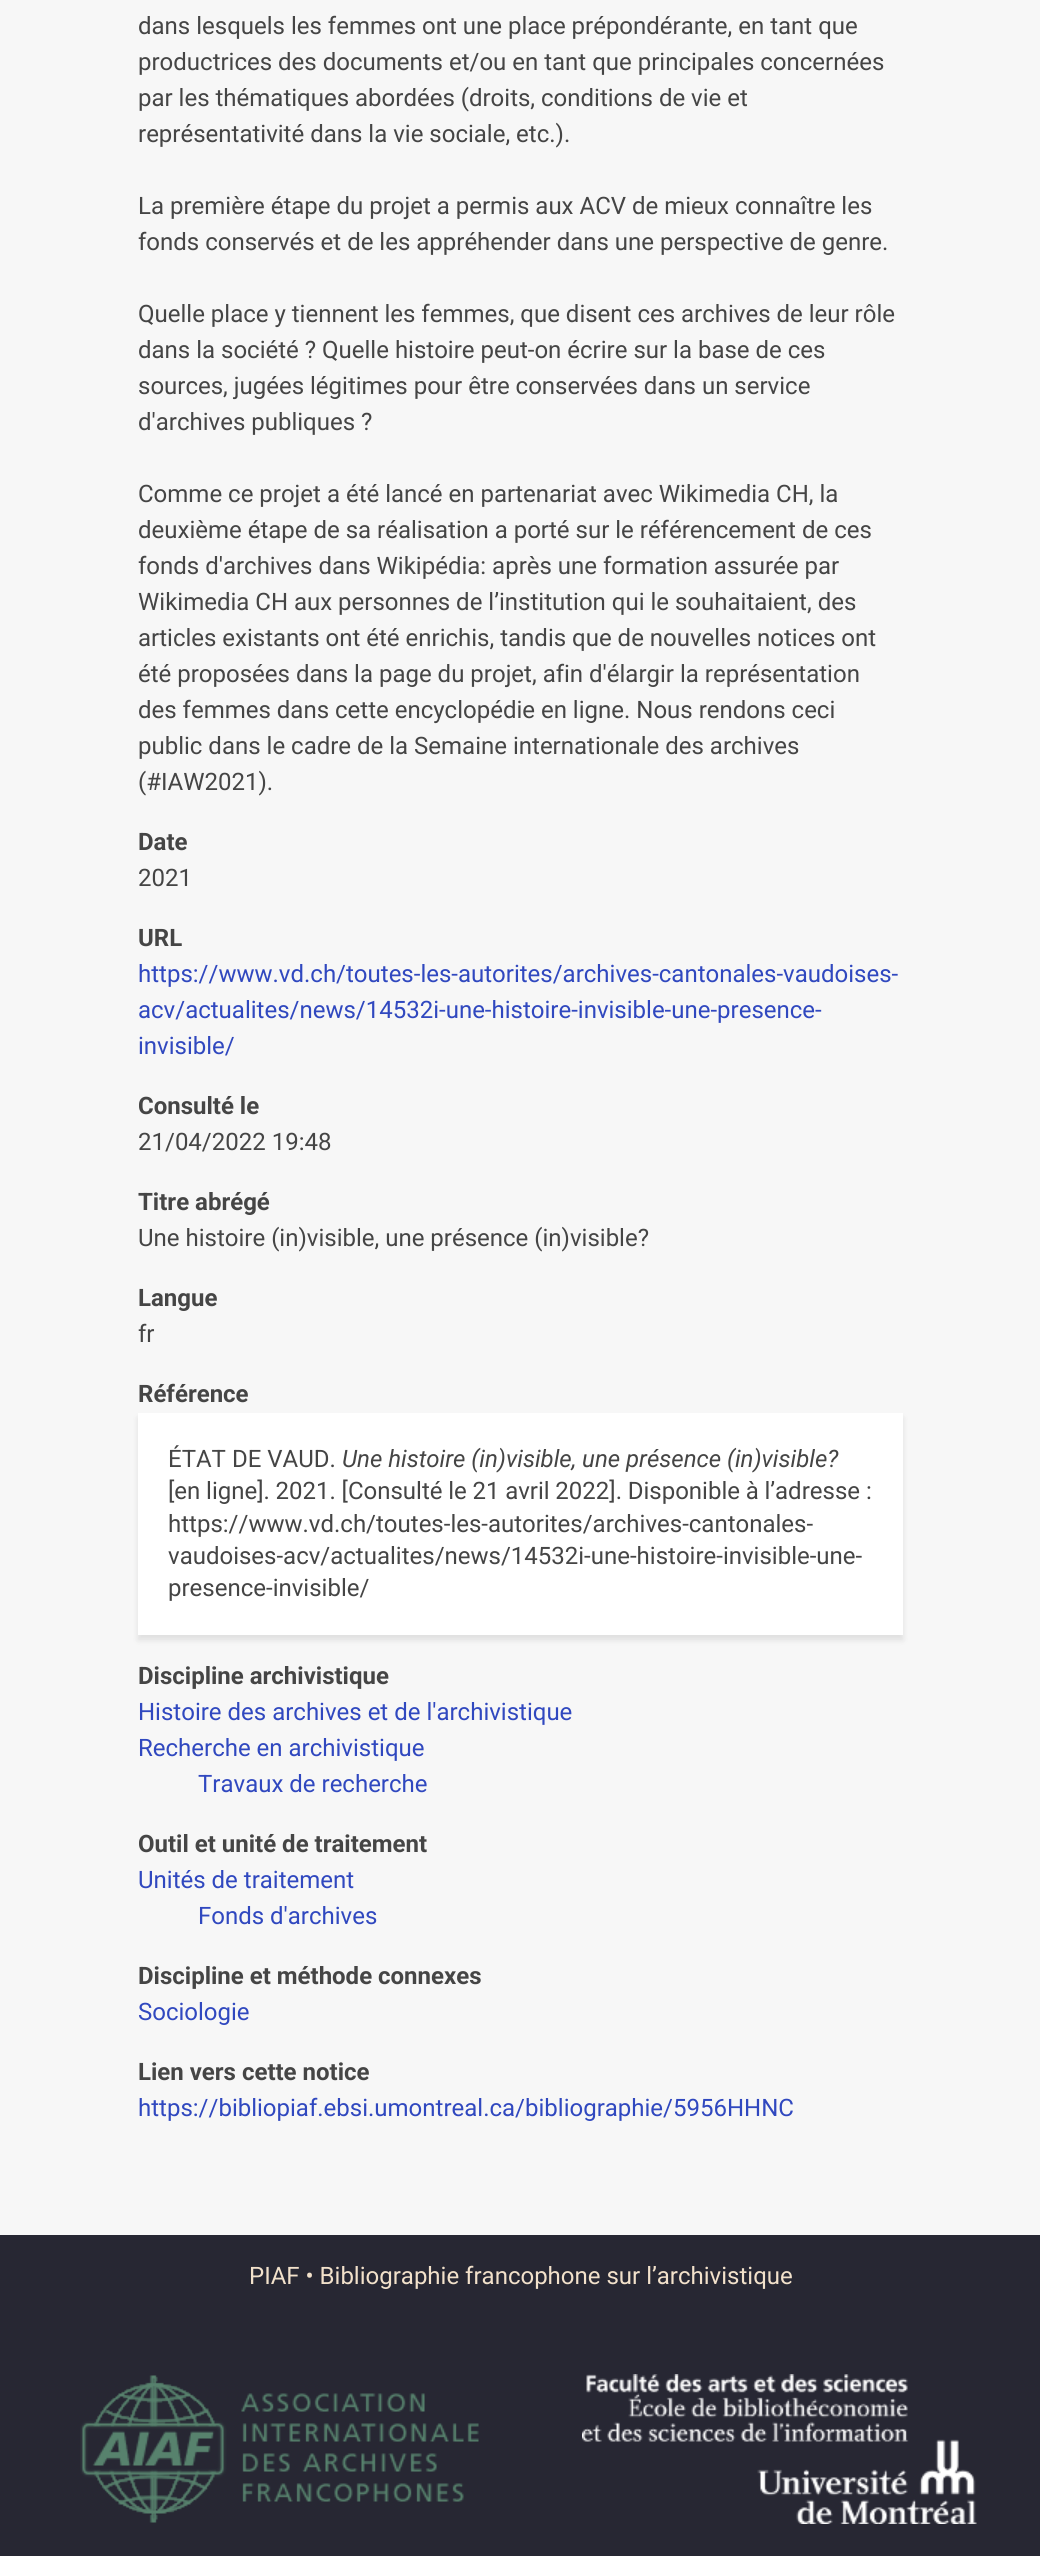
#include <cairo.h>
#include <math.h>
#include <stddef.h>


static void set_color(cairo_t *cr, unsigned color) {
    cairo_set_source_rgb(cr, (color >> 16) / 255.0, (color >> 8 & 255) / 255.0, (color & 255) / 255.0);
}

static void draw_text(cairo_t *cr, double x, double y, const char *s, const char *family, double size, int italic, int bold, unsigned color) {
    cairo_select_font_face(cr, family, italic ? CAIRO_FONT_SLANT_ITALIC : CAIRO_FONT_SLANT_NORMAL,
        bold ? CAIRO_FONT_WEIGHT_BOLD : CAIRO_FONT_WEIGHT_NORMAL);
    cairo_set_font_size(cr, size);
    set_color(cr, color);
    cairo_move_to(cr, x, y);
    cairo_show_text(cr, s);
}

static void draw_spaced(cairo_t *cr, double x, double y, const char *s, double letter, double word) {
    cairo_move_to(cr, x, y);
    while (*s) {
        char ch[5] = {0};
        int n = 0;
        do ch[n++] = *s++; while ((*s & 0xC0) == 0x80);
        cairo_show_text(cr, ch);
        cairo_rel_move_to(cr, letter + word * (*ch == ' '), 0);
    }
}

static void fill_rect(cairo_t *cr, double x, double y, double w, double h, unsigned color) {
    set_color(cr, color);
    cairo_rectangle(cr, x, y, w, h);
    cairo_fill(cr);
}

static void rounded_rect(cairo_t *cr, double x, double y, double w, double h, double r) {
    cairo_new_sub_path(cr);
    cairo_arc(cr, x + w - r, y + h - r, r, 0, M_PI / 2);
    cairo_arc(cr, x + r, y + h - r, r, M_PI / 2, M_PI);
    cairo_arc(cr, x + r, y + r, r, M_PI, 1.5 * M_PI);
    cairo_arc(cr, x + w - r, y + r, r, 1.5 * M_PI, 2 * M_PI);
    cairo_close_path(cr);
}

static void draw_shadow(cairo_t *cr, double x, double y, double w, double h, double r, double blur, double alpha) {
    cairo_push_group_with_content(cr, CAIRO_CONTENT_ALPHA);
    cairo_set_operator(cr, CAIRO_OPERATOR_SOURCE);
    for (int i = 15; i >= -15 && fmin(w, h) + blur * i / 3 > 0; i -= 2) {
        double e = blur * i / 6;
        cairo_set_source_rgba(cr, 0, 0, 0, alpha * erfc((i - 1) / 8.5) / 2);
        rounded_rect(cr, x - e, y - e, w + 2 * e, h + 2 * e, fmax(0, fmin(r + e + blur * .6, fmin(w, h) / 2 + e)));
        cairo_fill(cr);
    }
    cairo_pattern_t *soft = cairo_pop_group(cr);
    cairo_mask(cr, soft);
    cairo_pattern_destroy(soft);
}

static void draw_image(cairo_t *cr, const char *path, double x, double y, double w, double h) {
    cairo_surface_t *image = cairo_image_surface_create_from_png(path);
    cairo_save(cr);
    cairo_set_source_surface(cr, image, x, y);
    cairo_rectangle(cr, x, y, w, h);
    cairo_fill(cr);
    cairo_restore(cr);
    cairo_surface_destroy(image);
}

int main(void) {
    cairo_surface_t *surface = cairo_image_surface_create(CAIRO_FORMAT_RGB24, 1040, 2556);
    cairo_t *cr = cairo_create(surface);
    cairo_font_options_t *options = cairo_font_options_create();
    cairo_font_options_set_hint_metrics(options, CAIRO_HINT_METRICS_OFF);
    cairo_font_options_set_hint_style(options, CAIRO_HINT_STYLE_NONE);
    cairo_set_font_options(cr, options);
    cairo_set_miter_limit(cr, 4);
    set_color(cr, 0xF7F7F7);
    cairo_paint(cr);
    draw_text(cr, 138, 34, "dans lesquels les femmes ont une place prépondérante, en tant que", "Roboto", 24, 0, 0, 0x454545);
    draw_text(cr, 138, 70, "productrices des documents et/ou en tant que principales concernées", "Roboto", 24, 0, 0, 0x454545);
    draw_text(cr, 138, 106, "par les thématiques abordées (droits, conditions de vie et", "Roboto", 24, 0, 0, 0x454545);
    draw_text(cr, 138, 142, "représentativité dans la vie sociale, etc.).", "Roboto", 24, 0, 0, 0x454545);
    draw_text(cr, 138, 214, "La première étape du projet a permis aux ACV de mieux connaître les", "Roboto", 24, 0, 0, 0x454545);
    draw_text(cr, 138, 250, "fonds conservés et de les appréhender dans une perspective de genre.", "Roboto", 24, 0, 0, 0x454545);
    draw_text(cr, 138, 322, "Quelle place y tiennent les femmes, que disent ces archives de leur rôle", "Roboto", 24, 0, 0, 0x454545);
    draw_text(cr, 138, 358, "dans la société ? Quelle histoire peut-on écrire sur la base de ces", "Roboto", 24, 0, 0, 0x454545);
    draw_text(cr, 138, 394, "sources, jugées légitimes pour être conservées dans un service", "Roboto", 24, 0, 0, 0x454545);
    draw_text(cr, 138, 430, "d'archives publiques ?", "Roboto", 24, 0, 0, 0x454545);
    draw_text(cr, 138, 502, "Comme ce projet a été lancé en partenariat avec Wikimedia CH, la", "Roboto", 24, 0, 0, 0x454545);
    draw_text(cr, 138, 538, "deuxième étape de sa réalisation a porté sur le référencement de ces", "Roboto", 24, 0, 0, 0x454545);
    draw_text(cr, 138, 574, "fonds d'archives dans Wikipédia: après une formation assurée par", "Roboto", 24, 0, 0, 0x454545);
    draw_text(cr, 138, 610, "Wikimedia CH aux personnes de l’institution qui le souhaitaient, des", "Roboto", 24, 0, 0, 0x454545);
    draw_text(cr, 138, 646, "articles existants ont été enrichis, tandis que de nouvelles notices ont", "Roboto", 24, 0, 0, 0x454545);
    draw_text(cr, 138, 682, "été proposées dans la page du projet, afin d'élargir la représentation", "Roboto", 24, 0, 0, 0x454545);
    draw_text(cr, 138, 718, "des femmes dans cette encyclopédie en ligne. Nous rendons ceci", "Roboto", 24, 0, 0, 0x454545);
    draw_text(cr, 138, 754, "public dans le cadre de la Semaine internationale des archives", "Roboto", 24, 0, 0, 0x454545);
    draw_text(cr, 138, 790, "(#IAW2021).", "Roboto", 24, 0, 0, 0x454545);
    draw_text(cr, 138, 850, "Date", "Roboto", 24, 0, 1, 0x454545);
    draw_text(cr, 138, 886, "2021", "Roboto", 24, 0, 0, 0x454545);
    draw_text(cr, 138, 946, "URL", "Roboto", 24, 0, 1, 0x454545);
    draw_text(cr, 138, 982, "https://www.vd.ch/toutes-les-autorites/archives-cantonales-vaudoises-", "Roboto", 24, 0, 0, 0x3048BF);
    draw_text(cr, 138, 1018, "acv/actualites/news/14532i-une-histoire-invisible-une-presence-", "Roboto", 24, 0, 0, 0x3048BF);
    draw_text(cr, 138, 1054, "invisible/", "Roboto", 24, 0, 0, 0x3048BF);
    draw_text(cr, 138, 1114, "Consulté le", "Roboto", 24, 0, 1, 0x454545);
    draw_text(cr, 138, 1150, "21/04/2022 19:48", "Roboto", 24, 0, 0, 0x454545);
    draw_text(cr, 138, 1210, "Titre abrégé", "Roboto", 24, 0, 1, 0x454545);
    draw_text(cr, 138, 1246, "Une histoire (in)visible, une présence (in)visible?", "Roboto", 24, 0, 0, 0x454545);
    draw_text(cr, 138, 1306, "Langue", "Roboto", 24, 0, 1, 0x454545);
    draw_text(cr, 138, 1342, "fr", "Roboto", 24, 0, 0, 0x454545);
    draw_text(cr, 138, 1402, "Référence", "Roboto", 24, 0, 1, 0x454545);
    set_color(cr, 0x000000);
    draw_shadow(cr, 138, 1418, 765, 222, 0, 3, 0.1);
    fill_rect(cr, 138, 1413, 765, 222, 0xFFFFFF);
    draw_text(cr, 168, 1467, "ÉTAT DE VAUD.", "Roboto", 24, 0, 0, 0x454545);
    draw_text(cr, 342, 1467, "Une histoire (in)visible, une présence (in)visible?", "Roboto", 24, 1, 0, 0x454545);
    cairo_select_font_face(cr, "Roboto", CAIRO_FONT_SLANT_NORMAL, CAIRO_FONT_WEIGHT_NORMAL);
    draw_spaced(cr, 168, 1499, "[en ligne]. 2021. [Consulté le 21 avril 2022]. Disponible à l’adresse", 0, -0.25);
    draw_text(cr, 866, 1499, ":", "Roboto", 24, 0, 0, 0x454545);
    draw_text(cr, 168, 1532, "https://www.vd.ch/toutes-les-autorites/archives-cantonales-", "Roboto", 24, 0, 0, 0x454545);
    draw_text(cr, 168, 1564, "vaudoises-acv/actualites/news/14532i-une-histoire-invisible-une-", "Roboto", 24, 0, 0, 0x454545);
    draw_text(cr, 168, 1596, "presence-invisible/", "Roboto", 24, 0, 0, 0x454545);
    draw_text(cr, 138, 1684, "Discipline archivistique", "Roboto", 24, 0, 1, 0x454545);
    draw_text(cr, 138, 1720, "Histoire des archives et de l'archivistique", "Roboto", 24, 0, 0, 0x3048BF);
    draw_text(cr, 138, 1756, "Recherche en archivistique", "Roboto", 24, 0, 0, 0x3048BF);
    draw_text(cr, 198, 1792, "Travaux de recherche", "Roboto", 24, 0, 0, 0x3048BF);
    draw_text(cr, 138, 1852, "Outil et unité de traitement", "Roboto", 24, 0, 1, 0x454545);
    draw_text(cr, 138, 1888, "Unités de traitement", "Roboto", 24, 0, 0, 0x3048BF);
    draw_text(cr, 198, 1924, "Fonds d'archives", "Roboto", 24, 0, 0, 0x3048BF);
    draw_text(cr, 138, 1984, "Discipline et méthode connexes", "Roboto", 24, 0, 1, 0x454545);
    draw_text(cr, 138, 2020, "Sociologie", "Roboto", 24, 0, 0, 0x3048BF);
    draw_text(cr, 138, 2080, "Lien vers cette notice", "Roboto", 24, 0, 1, 0x454545);
    draw_text(cr, 138, 2116, "https://bibliopiaf.ebsi.umontreal.ca/bibliographie/5956HHNC", "Roboto", 24, 0, 0, 0x3048BF);
    fill_rect(cr, 0, 2235, 1040, 321, 0x272733);
    draw_text(cr, 249, 2284, "PIAF • Bibliographie francophone sur l’archivistique", "Roboto", 24, 0, 0, 0xF2E1CB);
    draw_image(cr, "assets/img1.png", 80, 2375, 399, 148);
    draw_image(cr, "assets/img2.png", 582, 2374, 395, 150);
    cairo_surface_write_to_png(surface, "output.png");
    cairo_font_options_destroy(options);
    cairo_destroy(cr);
    cairo_surface_destroy(surface);
    return 0;
}
